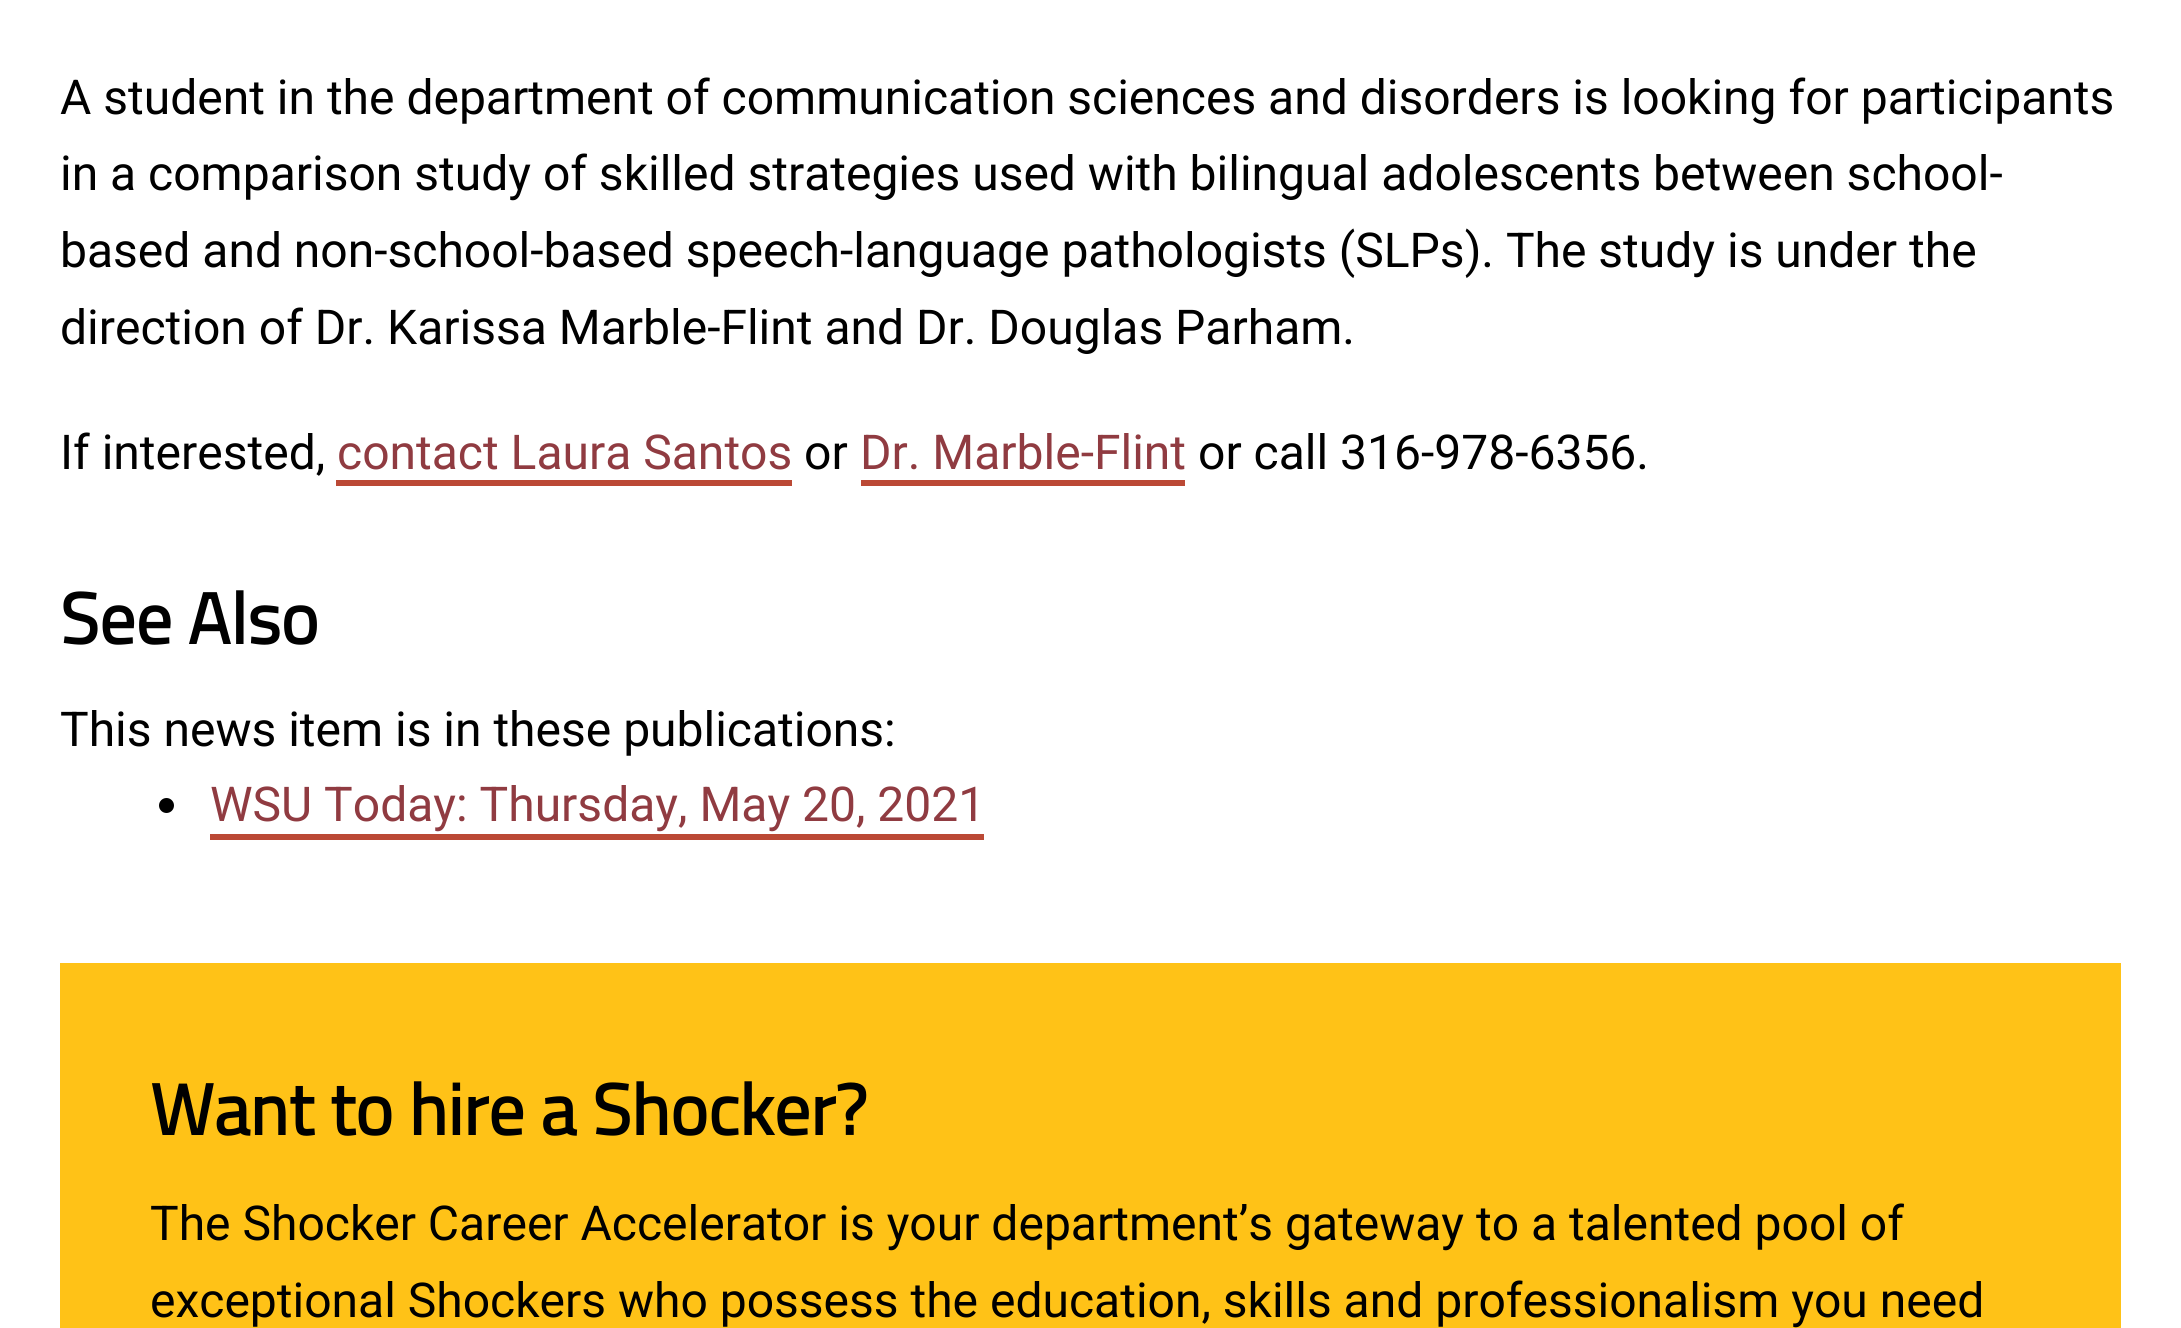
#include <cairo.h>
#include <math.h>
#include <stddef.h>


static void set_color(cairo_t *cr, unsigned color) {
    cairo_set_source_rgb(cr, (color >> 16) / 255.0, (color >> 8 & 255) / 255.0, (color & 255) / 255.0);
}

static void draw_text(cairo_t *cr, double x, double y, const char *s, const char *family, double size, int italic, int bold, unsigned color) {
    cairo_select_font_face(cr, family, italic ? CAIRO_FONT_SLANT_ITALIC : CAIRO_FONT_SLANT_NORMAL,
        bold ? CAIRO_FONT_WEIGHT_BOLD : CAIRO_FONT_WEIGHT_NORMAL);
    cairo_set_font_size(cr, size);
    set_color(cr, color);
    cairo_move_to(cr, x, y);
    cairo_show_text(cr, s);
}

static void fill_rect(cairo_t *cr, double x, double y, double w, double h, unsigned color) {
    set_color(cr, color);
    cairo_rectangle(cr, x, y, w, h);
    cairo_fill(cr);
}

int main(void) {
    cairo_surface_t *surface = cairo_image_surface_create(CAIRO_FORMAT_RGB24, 2181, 1328);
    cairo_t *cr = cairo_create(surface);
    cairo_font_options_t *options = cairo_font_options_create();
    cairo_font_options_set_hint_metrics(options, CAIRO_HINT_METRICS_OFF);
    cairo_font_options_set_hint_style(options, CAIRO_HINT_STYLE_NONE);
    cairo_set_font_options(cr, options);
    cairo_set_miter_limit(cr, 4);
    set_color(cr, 0xFFFFFF);
    cairo_paint(cr);
    draw_text(cr, 60, 114, "A student in the department of communication sciences and disorders is looking for participants", "Roboto", 48, 0, 0, 0x000000);
    draw_text(cr, 60, 190, "in a comparison study of skilled strategies used with bilingual adolescents between school-", "Roboto", 48, 0, 0, 0x000000);
    draw_text(cr, 60, 267, "based and non-school-based speech-language pathologists (SLPs). The study is under the", "Roboto", 48, 0, 0, 0x000000);
    draw_text(cr, 60, 344, "direction of Dr. Karissa Marble-Flint and Dr. Douglas Parham.", "Roboto", 48, 0, 0, 0x000000);
    draw_text(cr, 60, 469, "If interested,", "Roboto", 48, 0, 0, 0x000000);
    draw_text(cr, 337, 469, "contact Laura Santos", "Roboto", 48, 0, 0, 0x903B41);
    fill_rect(cr, 336, 480, 456, 6, 0xBB4935);
    draw_text(cr, 804, 469, "or", "Roboto", 48, 0, 0, 0x000000);
    draw_text(cr, 860, 469, "Dr. Marble-Flint", "Roboto", 48, 0, 0, 0x903B41);
    fill_rect(cr, 861, 480, 324, 6, 0xBB4935);
    draw_text(cr, 1198, 469, "or call 316-978-6356.", "Roboto", 48, 0, 0, 0x000000);
    draw_text(cr, 60, 644, "See Also", "Titillium Web", 72, 0, 1, 0x000000);
    draw_text(cr, 60, 746, "This news item is in these publications:", "Roboto", 48, 0, 0, 0x000000);
    cairo_new_path(cr);
    cairo_arc(cr, 166.5, 805.5, 7.5, 0, 2 * M_PI);
    cairo_fill(cr);
    draw_text(cr, 210, 821, "WSU Today: Thursday, May 20, 2021", "Roboto", 48, 0, 0, 0x903B41);
    fill_rect(cr, 210, 834, 774, 6, 0xBB4935);
    fill_rect(cr, 60, 963, 2061, 365, 0xFFC217);
    draw_text(cr, 150, 1135, "Want to hire a Shocker?", "Titillium Web", 72, 0, 1, 0x000000);
    draw_text(cr, 150, 1240, "The Shocker Career Accelerator is your department’s gateway to a talented pool of", "Roboto", 48, 0, 0, 0x000000);
    draw_text(cr, 150, 1317, "exceptional Shockers who possess the education, skills and professionalism you need", "Roboto", 48, 0, 0, 0x000000);
    cairo_surface_write_to_png(surface, "output.png");
    cairo_font_options_destroy(options);
    cairo_destroy(cr);
    cairo_surface_destroy(surface);
    return 0;
}
